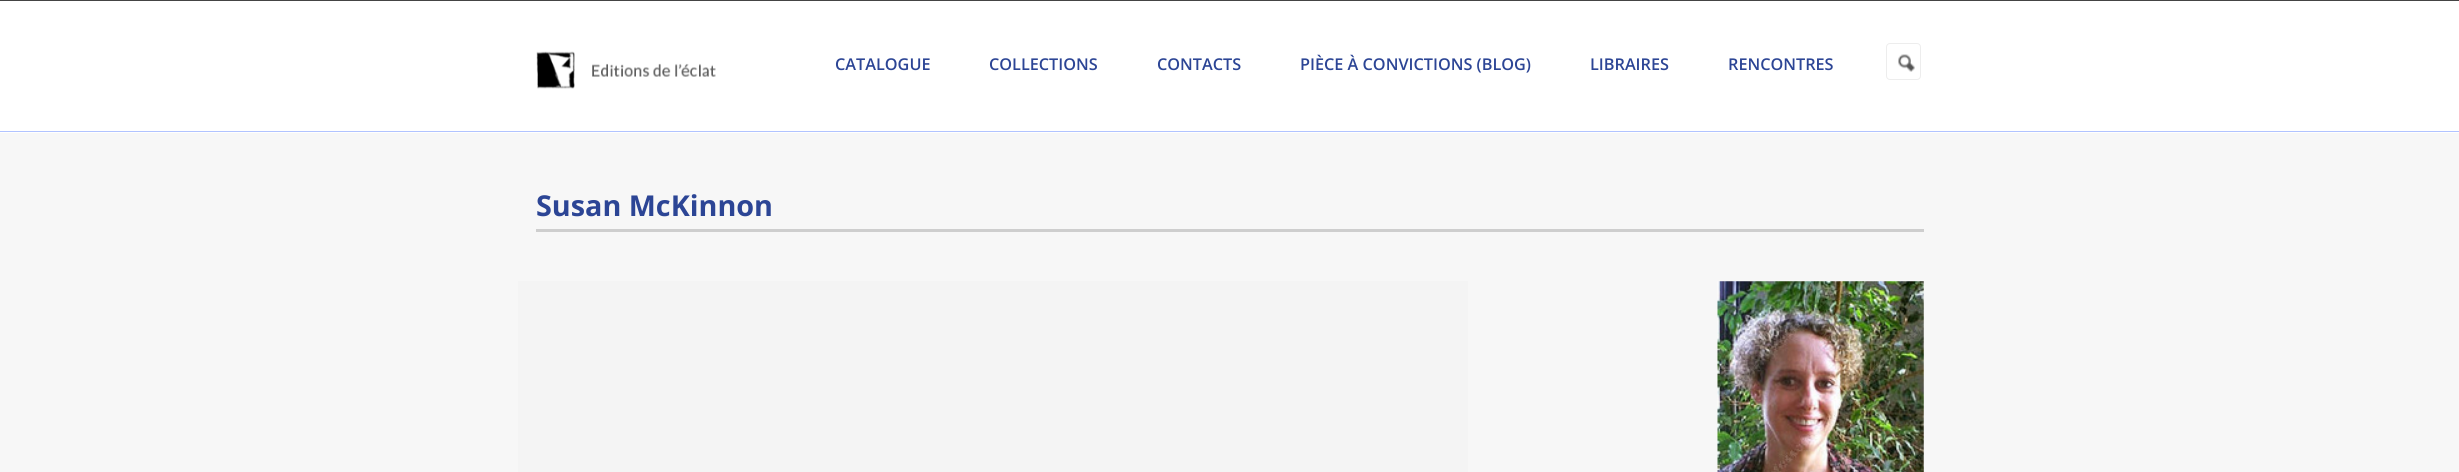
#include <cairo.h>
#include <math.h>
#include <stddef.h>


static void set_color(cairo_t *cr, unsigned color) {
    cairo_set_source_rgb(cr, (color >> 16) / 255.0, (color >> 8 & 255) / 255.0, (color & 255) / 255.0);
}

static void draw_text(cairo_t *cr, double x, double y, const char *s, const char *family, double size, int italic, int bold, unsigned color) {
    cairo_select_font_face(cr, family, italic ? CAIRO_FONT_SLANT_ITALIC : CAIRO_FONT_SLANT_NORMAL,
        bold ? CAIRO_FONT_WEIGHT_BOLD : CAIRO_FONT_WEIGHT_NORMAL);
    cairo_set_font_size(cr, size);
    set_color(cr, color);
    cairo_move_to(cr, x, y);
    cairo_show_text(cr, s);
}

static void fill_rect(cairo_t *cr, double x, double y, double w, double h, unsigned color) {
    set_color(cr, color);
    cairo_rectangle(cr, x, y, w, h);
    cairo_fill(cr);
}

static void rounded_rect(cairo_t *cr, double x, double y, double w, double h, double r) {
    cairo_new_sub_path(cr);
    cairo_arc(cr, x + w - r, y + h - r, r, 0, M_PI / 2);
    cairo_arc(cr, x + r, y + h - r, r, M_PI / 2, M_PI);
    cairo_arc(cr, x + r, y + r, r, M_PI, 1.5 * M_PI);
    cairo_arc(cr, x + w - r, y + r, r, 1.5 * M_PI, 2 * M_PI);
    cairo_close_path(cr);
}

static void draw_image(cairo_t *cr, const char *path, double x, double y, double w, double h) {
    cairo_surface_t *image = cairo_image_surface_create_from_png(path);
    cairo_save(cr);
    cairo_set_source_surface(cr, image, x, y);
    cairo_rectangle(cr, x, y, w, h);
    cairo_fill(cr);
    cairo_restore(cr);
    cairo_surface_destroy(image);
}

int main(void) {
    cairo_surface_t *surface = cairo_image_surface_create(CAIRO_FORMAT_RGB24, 2459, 472);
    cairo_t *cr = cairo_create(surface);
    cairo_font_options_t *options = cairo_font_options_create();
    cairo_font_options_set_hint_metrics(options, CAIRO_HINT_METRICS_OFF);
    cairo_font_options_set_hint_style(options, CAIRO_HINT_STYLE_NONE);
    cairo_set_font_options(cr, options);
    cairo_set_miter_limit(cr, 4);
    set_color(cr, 0xF7F7F7);
    cairo_paint(cr);
    fill_rect(cr, 0, 1, 2459, 132, 0xFFFFFF);
    fill_rect(cr, 0, 0, 2459, 1, 0x444444);
    fill_rect(cr, 0, 131, 2459, 1, 0xB1C3FF);
    draw_image(cr, "assets/img1.png", 536, 51, 180, 38);
    draw_text(cr, 835, 70, "CATALOGUE", "Open Sans SemiBold", 16.25, 0, 0, 0x2C4595);
    draw_text(cr, 989, 70, "COLLECTIONS", "Open Sans SemiBold", 16.25, 0, 0, 0x2C4595);
    draw_text(cr, 1157, 70, "CONTACTS", "Open Sans SemiBold", 16.25, 0, 0, 0x2C4595);
    draw_text(cr, 1300, 70, "PIÈCE À CONVICTIONS (BLOG)", "Open Sans SemiBold", 16.25, 0, 0, 0x2C4595);
    draw_text(cr, 1590, 70, "LIBRAIRES", "Open Sans SemiBold", 16.25, 0, 0, 0x2C4595);
    draw_text(cr, 1728, 70, "RENCONTRES", "Open Sans SemiBold", 16.25, 0, 0, 0x2C4595);
    draw_image(cr, "assets/img2.png", 1898, 54, 17, 18);
    rounded_rect(cr, 1886.5, 43.5, 34, 36, 3.5);
    set_color(cr, 0xEDEDED);
    cairo_set_line_width(cr, 1);
    cairo_stroke(cr);
    draw_text(cr, 536, 216, "Susan McKinnon", "Open Sans", 28.75, 0, 1, 0x2C4595);
    fill_rect(cr, 536, 229, 1388, 3, 0xCECECE);
    fill_rect(cr, 518, 281, 950, 191, 0xF4F4F4);
    draw_image(cr, "assets/img3.png", 1717, 281, 207, 191);
    cairo_surface_write_to_png(surface, "output.png");
    cairo_font_options_destroy(options);
    cairo_destroy(cr);
    cairo_surface_destroy(surface);
    return 0;
}
